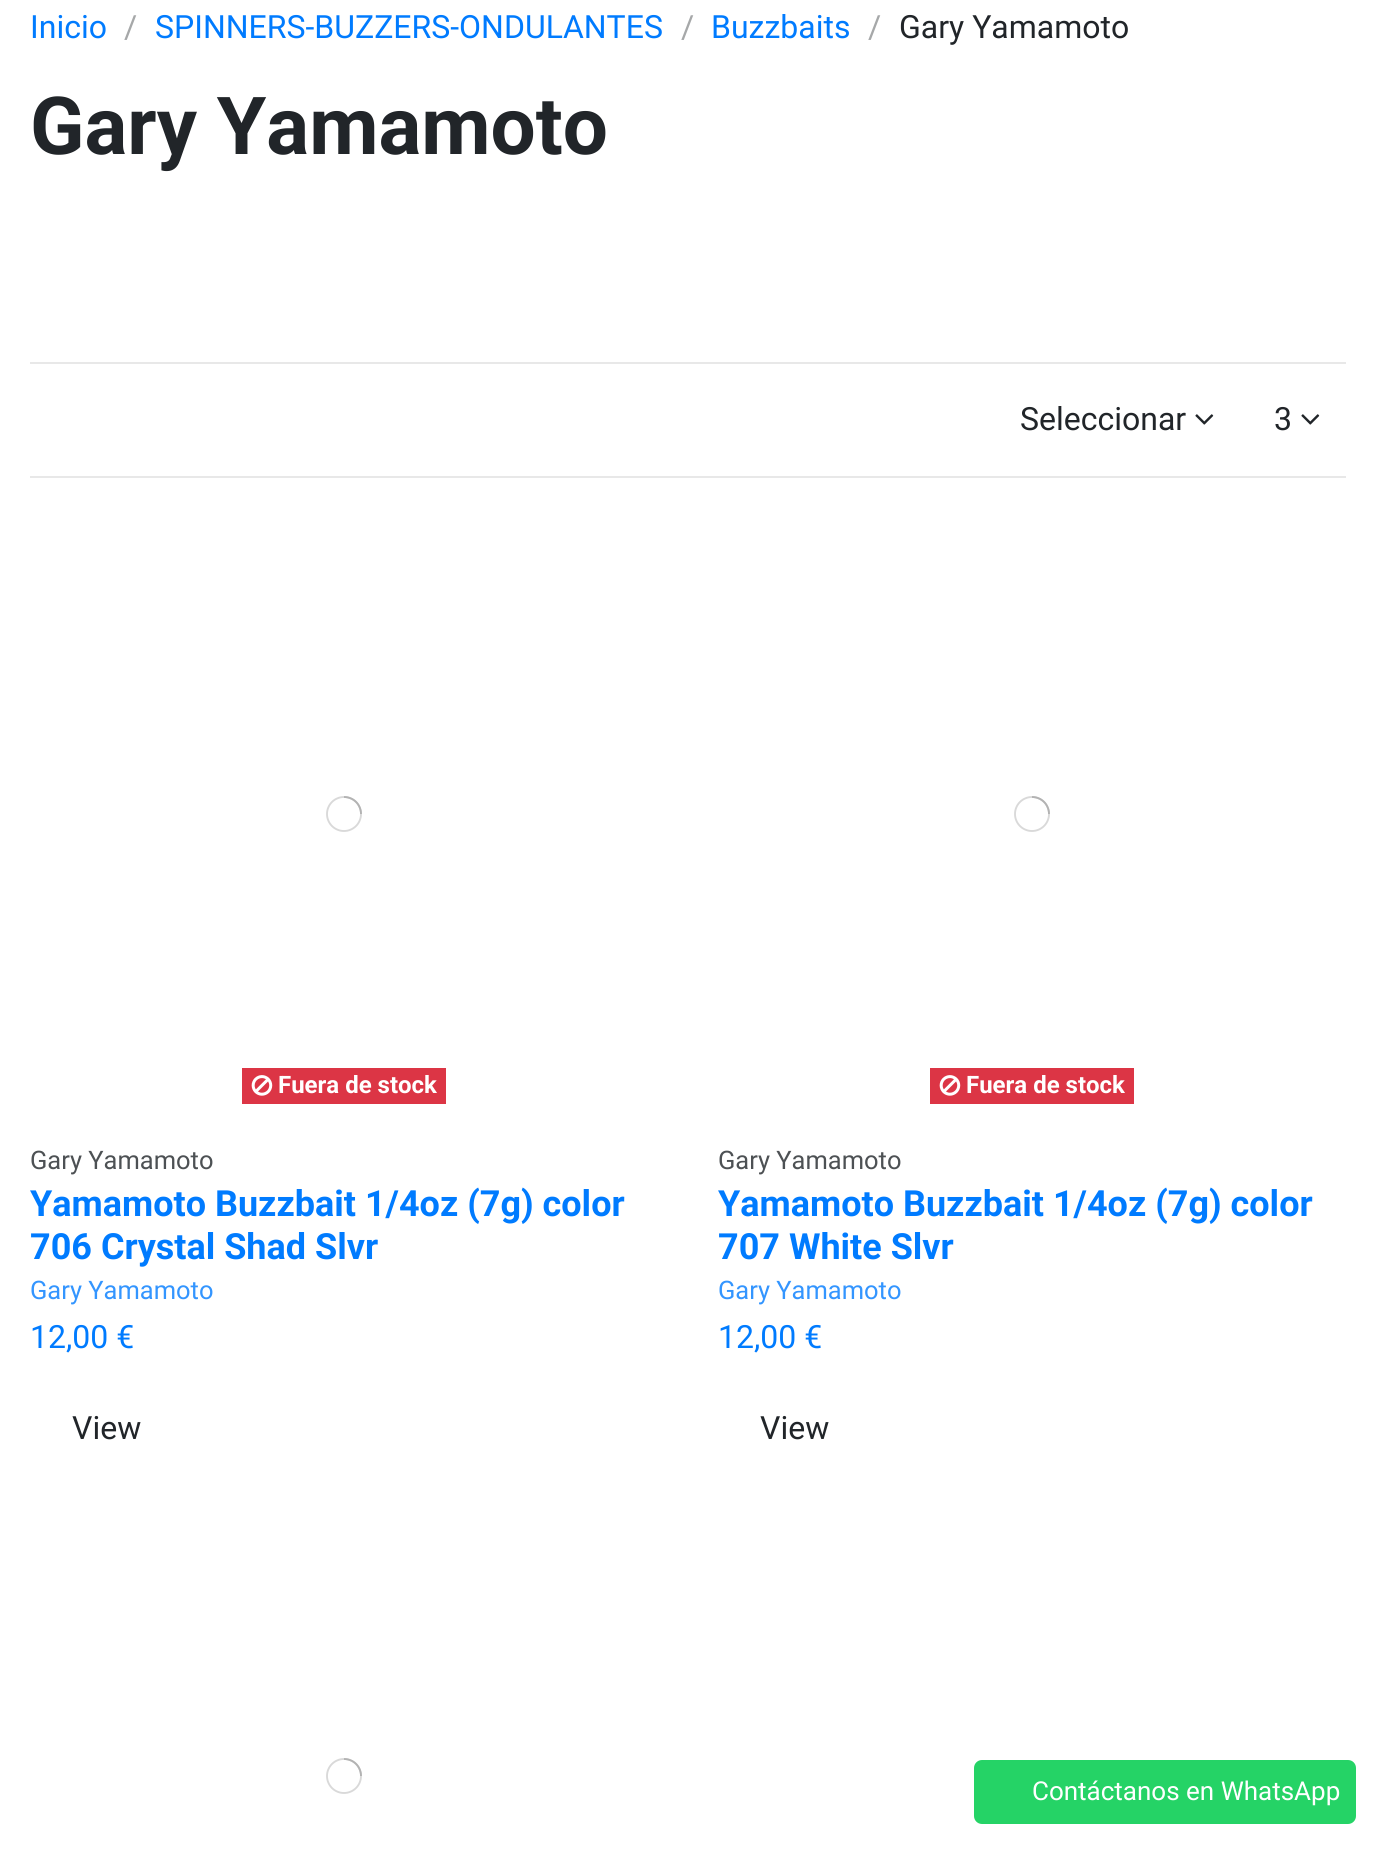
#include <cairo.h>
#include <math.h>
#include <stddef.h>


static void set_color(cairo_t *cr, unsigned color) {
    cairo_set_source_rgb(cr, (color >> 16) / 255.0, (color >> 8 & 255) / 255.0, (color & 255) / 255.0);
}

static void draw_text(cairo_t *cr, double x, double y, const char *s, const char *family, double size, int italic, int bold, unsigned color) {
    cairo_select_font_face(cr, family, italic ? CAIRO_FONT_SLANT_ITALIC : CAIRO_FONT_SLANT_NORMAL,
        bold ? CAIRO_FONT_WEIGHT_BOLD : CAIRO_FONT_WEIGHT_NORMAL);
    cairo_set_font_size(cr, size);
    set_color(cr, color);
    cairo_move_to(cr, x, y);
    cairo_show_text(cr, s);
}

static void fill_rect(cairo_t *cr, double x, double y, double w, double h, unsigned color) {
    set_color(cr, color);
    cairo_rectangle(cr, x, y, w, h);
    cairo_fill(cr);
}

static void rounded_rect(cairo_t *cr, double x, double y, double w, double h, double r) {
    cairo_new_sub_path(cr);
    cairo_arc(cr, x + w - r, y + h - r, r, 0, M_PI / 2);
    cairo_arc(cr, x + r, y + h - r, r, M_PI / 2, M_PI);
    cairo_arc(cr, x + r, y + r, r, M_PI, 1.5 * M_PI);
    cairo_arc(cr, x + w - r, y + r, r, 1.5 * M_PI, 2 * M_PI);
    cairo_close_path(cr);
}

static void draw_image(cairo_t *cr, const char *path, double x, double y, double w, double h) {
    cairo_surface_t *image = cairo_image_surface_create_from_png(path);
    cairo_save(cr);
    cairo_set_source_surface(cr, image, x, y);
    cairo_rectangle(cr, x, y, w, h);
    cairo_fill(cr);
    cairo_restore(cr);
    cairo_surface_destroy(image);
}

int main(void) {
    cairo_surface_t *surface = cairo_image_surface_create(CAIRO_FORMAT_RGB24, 1376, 1863);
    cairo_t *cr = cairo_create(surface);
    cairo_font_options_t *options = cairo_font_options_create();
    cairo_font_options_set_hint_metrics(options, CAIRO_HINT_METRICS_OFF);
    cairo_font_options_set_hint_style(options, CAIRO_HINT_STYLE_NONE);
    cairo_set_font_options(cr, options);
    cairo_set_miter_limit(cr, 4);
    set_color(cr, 0xFFFFFF);
    cairo_paint(cr);
    draw_text(cr, 30, 38, "Inicio", "Roboto", 32, 0, 0, 0x007BFF);
    draw_text(cr, 124, 38, "/", "Roboto", 32, 0, 0, 0xA6A8A9);
    draw_text(cr, 155, 38, "SPINNERS-BUZZERS-ONDULANTES", "Roboto", 32, 0, 0, 0x007BFF);
    draw_text(cr, 681, 38, "/", "Roboto", 32, 0, 0, 0xA6A8A9);
    draw_text(cr, 711, 38, "Buzzbaits", "Roboto", 32, 0, 0, 0x007BFF);
    draw_text(cr, 868, 38, "/", "Roboto", 32, 0, 0, 0xA6A8A9);
    draw_text(cr, 899, 38, "Gary Yamamoto", "Roboto", 32, 0, 0, 0x212529);
    draw_text(cr, 30, 154, "Gary Yamamoto", "Roboto", 80, 0, 1, 0x212529);
    fill_rect(cr, 30, 362, 1316, 2, 0xE8E8E8);
    fill_rect(cr, 30, 476, 1316, 2, 0xE8E8E8);
    draw_text(cr, 1020, 430, "Seleccionar", "Roboto", 32, 0, 0, 0x212529);
    draw_image(cr, "assets/img1.png", 1195, 414, 19, 11);
    draw_text(cr, 1274, 430, "3", "Roboto", 32, 0, 0, 0x212529);
    draw_image(cr, "assets/img1.png", 1301, 414, 19, 11);
    cairo_arc(cr, 344, 814, 17, 0, 2 * M_PI);
    set_color(cr, 0xD9D9D9);
    cairo_set_line_width(cr, 1.9);
    cairo_stroke(cr);
    cairo_new_path(cr);
    cairo_move_to(cr, 361, 814);
    cairo_curve_to(cr, 361, 804.5, 353.5, 797, 344, 797);
    set_color(cr, 0xB3B3B3);
    cairo_stroke(cr);
    fill_rect(cr, 242, 1068, 204, 36, 0xDC3545);
    draw_image(cr, "assets/img2.png", 251, 1075, 22, 21);
    draw_text(cr, 278, 1093, "Fuera de stock", "Roboto", 24, 0, 1, 0xFFFFFF);
    draw_text(cr, 30, 1169, "Gary Yamamoto", "Roboto", 25.5, 0, 0, 0x4D5154);
    draw_text(cr, 30, 1216, "Yamamoto Buzzbait 1/4oz (7g) color", "Roboto", 36, 0, 1, 0x007BFF);
    draw_text(cr, 30, 1259, "706 Crystal Shad Slvr", "Roboto", 36, 0, 1, 0x007BFF);
    draw_text(cr, 30, 1299, "Gary Yamamoto", "Roboto", 25.5, 0, 0, 0x3395FF);
    draw_text(cr, 30, 1348, "12,00 €", "Roboto", 32, 0, 0, 0x007BFF);
    draw_text(cr, 72, 1439, "View", "Roboto", 32, 0, 0, 0x212529);
    cairo_new_path(cr);
    cairo_arc(cr, 1032, 814, 17, 0, 2 * M_PI);
    set_color(cr, 0xD9D9D9);
    cairo_stroke(cr);
    cairo_new_path(cr);
    cairo_move_to(cr, 1049, 814);
    cairo_curve_to(cr, 1049, 804.5, 1041.5, 797, 1032, 797);
    set_color(cr, 0xB3B3B3);
    cairo_stroke(cr);
    fill_rect(cr, 930, 1068, 204, 36, 0xDC3545);
    draw_image(cr, "assets/img2.png", 939, 1075, 22, 21);
    draw_text(cr, 966, 1093, "Fuera de stock", "Roboto", 24, 0, 1, 0xFFFFFF);
    draw_text(cr, 718, 1169, "Gary Yamamoto", "Roboto", 25.5, 0, 0, 0x4D5154);
    draw_text(cr, 718, 1216, "Yamamoto Buzzbait 1/4oz (7g) color", "Roboto", 36, 0, 1, 0x007BFF);
    draw_text(cr, 718, 1259, "707 White Slvr", "Roboto", 36, 0, 1, 0x007BFF);
    draw_text(cr, 718, 1299, "Gary Yamamoto", "Roboto", 25.5, 0, 0, 0x3395FF);
    draw_text(cr, 718, 1348, "12,00 €", "Roboto", 32, 0, 0, 0x007BFF);
    draw_text(cr, 760, 1439, "View", "Roboto", 32, 0, 0, 0x212529);
    cairo_new_path(cr);
    cairo_arc(cr, 344, 1776, 17, 0, 2 * M_PI);
    set_color(cr, 0xD9D9D9);
    cairo_stroke(cr);
    cairo_new_path(cr);
    cairo_move_to(cr, 361, 1776);
    cairo_curve_to(cr, 361, 1766.5, 353.5, 1759, 344, 1759);
    set_color(cr, 0xB3B3B3);
    cairo_stroke(cr);
    set_color(cr, 0x25D366);
    rounded_rect(cr, 974, 1760, 382, 64, 8);
    cairo_fill(cr);
    draw_text(cr, 1032, 1800, "Contáctanos en WhatsApp", "Roboto", 26, 0, 0, 0xFFFFFF);
    cairo_surface_write_to_png(surface, "output.png");
    cairo_font_options_destroy(options);
    cairo_destroy(cr);
    cairo_surface_destroy(surface);
    return 0;
}
